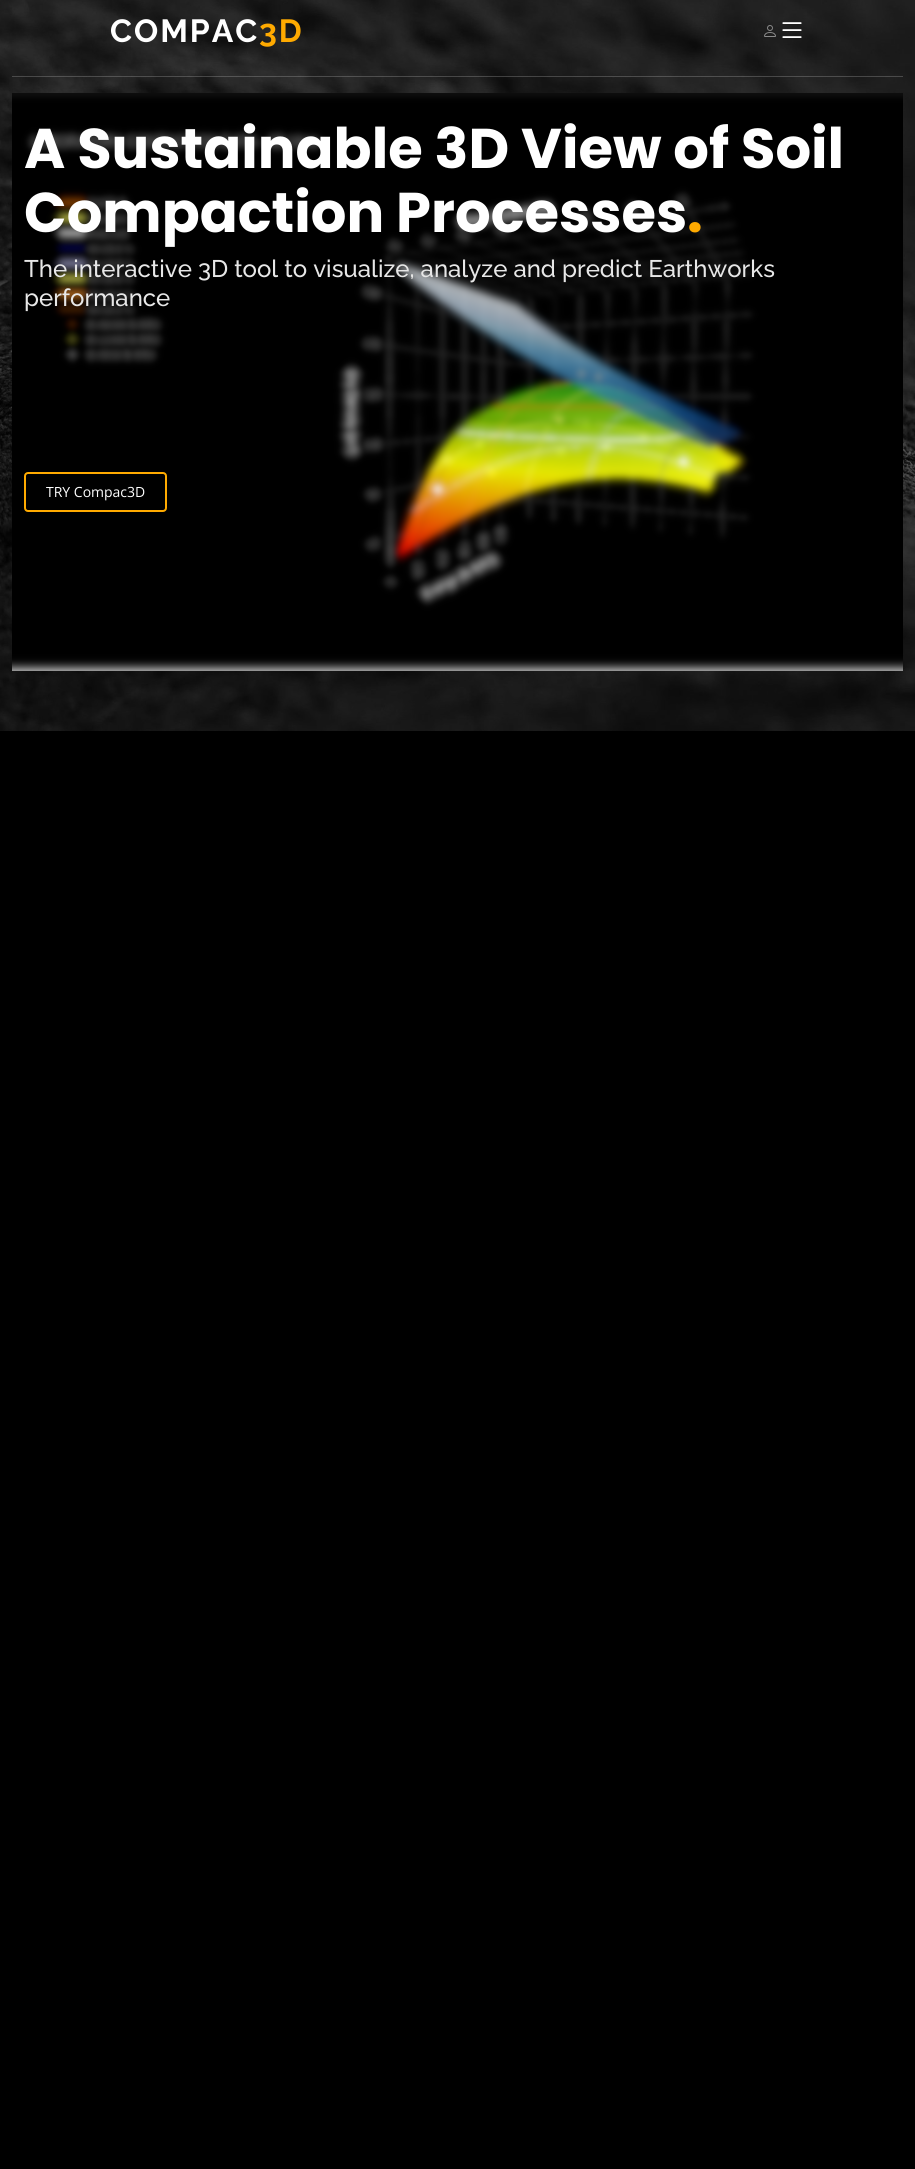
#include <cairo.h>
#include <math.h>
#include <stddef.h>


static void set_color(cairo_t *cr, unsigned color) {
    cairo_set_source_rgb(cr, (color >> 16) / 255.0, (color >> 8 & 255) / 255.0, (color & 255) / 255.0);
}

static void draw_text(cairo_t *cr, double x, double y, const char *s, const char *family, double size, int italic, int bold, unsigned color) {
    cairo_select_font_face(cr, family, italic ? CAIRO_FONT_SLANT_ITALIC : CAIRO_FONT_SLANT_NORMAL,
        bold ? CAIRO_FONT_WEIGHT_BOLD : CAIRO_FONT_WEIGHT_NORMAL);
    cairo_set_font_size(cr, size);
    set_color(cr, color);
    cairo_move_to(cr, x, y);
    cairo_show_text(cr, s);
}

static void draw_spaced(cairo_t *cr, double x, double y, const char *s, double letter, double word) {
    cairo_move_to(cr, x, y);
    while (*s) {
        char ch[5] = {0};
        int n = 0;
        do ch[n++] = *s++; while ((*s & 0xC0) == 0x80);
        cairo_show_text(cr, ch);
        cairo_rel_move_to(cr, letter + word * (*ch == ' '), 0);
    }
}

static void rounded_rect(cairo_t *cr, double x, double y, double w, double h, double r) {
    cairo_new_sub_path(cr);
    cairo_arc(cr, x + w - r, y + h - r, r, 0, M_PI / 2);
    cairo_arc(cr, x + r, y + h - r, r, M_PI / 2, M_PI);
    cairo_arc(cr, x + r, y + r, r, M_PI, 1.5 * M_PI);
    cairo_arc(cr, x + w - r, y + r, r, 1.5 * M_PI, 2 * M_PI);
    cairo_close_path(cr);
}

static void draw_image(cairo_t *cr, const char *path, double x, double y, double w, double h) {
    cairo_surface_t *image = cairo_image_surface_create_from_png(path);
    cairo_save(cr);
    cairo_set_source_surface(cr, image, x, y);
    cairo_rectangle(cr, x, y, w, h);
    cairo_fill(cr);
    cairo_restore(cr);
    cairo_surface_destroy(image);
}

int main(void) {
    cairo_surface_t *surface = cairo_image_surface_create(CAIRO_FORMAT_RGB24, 915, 2169);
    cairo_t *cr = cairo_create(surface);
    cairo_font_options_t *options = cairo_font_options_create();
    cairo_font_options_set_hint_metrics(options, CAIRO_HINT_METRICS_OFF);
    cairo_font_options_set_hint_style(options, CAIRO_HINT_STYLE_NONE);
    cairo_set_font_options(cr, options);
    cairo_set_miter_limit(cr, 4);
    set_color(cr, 0x000000);
    cairo_paint(cr);
    draw_image(cr, "assets/img3.png", 0, 0, 915, 731);
    cairo_select_font_face(cr, "Raleway", CAIRO_FONT_SLANT_NORMAL, CAIRO_FONT_WEIGHT_BOLD);
    cairo_set_font_size(cr, 32);
    set_color(cr, 0xFFFFFF);
    draw_spaced(cr, 110, 42, "COMPAC", 2, 0);
    set_color(cr, 0xFFAA00);
    draw_spaced(cr, 259, 42, "3D", 2, 0);
    draw_image(cr, "assets/img1.png", 764, 25, 12, 12);
    draw_image(cr, "assets/img2.png", 782, 22, 20, 16);
    cairo_set_source_rgba(cr, 0.827, 0.827, 0.827, 0.25);
    cairo_rectangle(cr, 12, 76, 891, 1);
    cairo_fill(cr);
    draw_image(cr, "assets/img4.png", 12, 93, 891, 578);
    draw_text(cr, 24, 168, "A Sustainable 3D View of Soil", "Poppins", 56, 0, 1, 0xFFFFFF);
    draw_text(cr, 24, 232, "Compaction Processes", "Poppins", 56, 0, 1, 0xFFFFFF);
    draw_text(cr, 687, 232, ".", "Poppins", 56, 0, 1, 0xFFAA00);
    draw_text(cr, 24, 277, "The interactive 3D tool to visualize, analyze and predict Earthworks", "Raleway Medium", 24, 0, 0, 0xE7E7E7);
    draw_text(cr, 24, 306, "performance", "Raleway Medium", 24, 0, 0, 0xE7E7E7);
    rounded_rect(cr, 25, 473, 141, 38, 3);
    set_color(cr, 0xFFAA00);
    cairo_stroke(cr);
    draw_text(cr, 46, 497, "TRY Compac3D", "Open Sans", 14, 0, 0, 0xFFFFFF);
    cairo_surface_write_to_png(surface, "output.png");
    cairo_font_options_destroy(options);
    cairo_destroy(cr);
    cairo_surface_destroy(surface);
    return 0;
}
